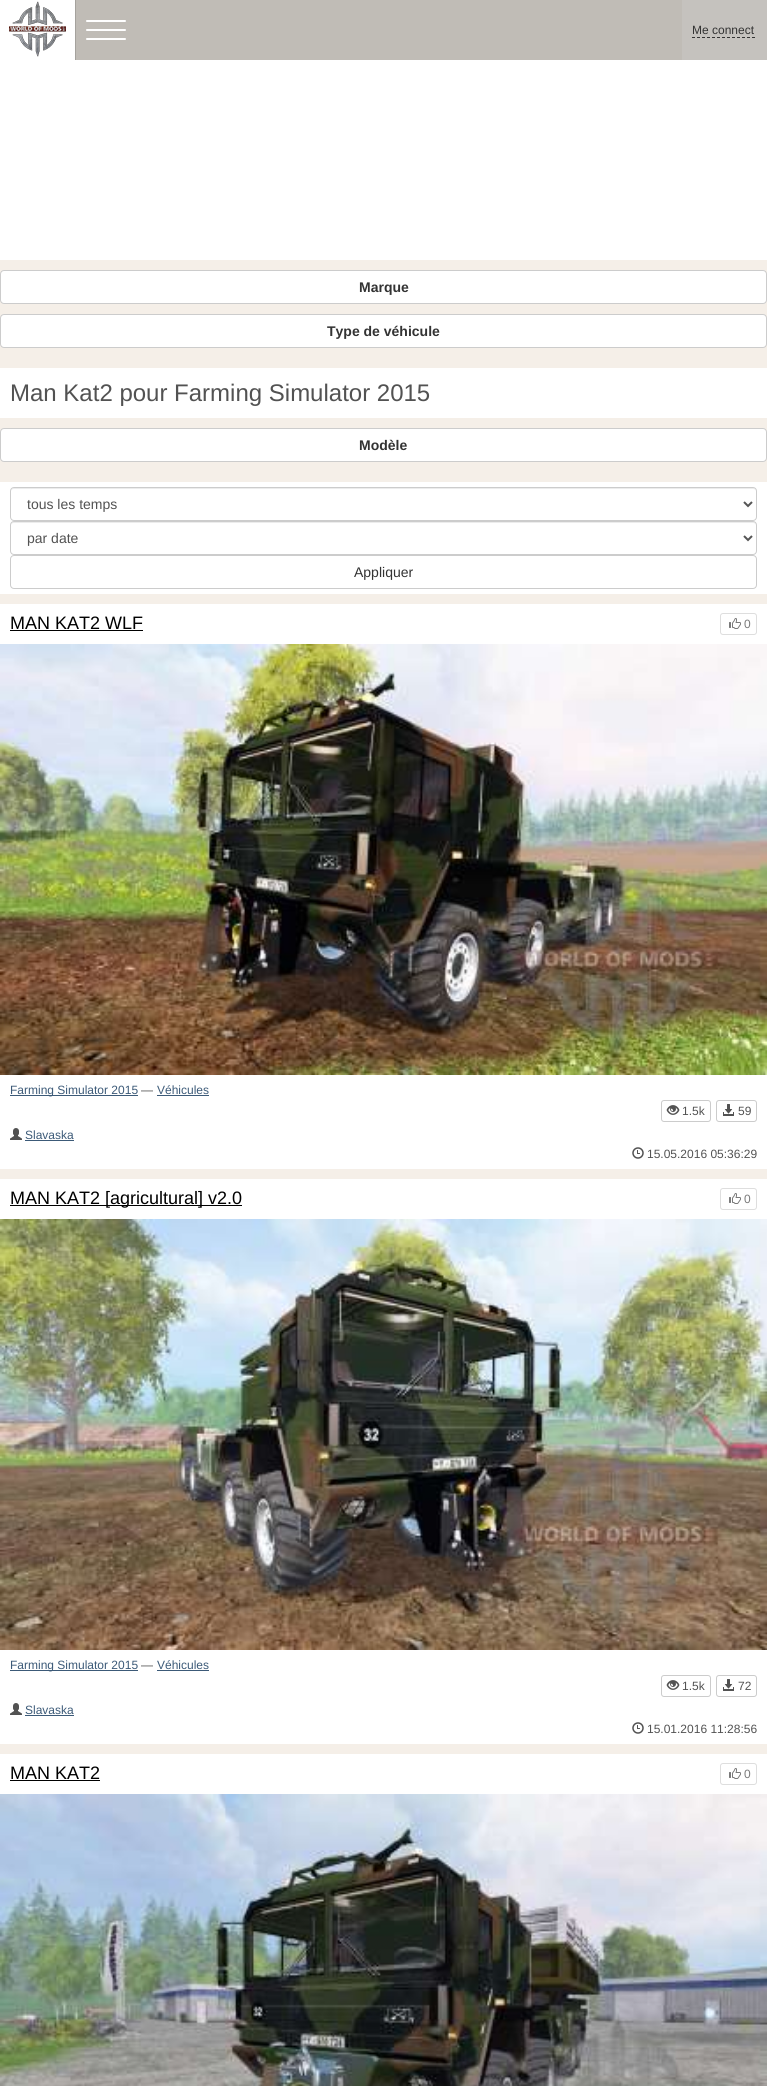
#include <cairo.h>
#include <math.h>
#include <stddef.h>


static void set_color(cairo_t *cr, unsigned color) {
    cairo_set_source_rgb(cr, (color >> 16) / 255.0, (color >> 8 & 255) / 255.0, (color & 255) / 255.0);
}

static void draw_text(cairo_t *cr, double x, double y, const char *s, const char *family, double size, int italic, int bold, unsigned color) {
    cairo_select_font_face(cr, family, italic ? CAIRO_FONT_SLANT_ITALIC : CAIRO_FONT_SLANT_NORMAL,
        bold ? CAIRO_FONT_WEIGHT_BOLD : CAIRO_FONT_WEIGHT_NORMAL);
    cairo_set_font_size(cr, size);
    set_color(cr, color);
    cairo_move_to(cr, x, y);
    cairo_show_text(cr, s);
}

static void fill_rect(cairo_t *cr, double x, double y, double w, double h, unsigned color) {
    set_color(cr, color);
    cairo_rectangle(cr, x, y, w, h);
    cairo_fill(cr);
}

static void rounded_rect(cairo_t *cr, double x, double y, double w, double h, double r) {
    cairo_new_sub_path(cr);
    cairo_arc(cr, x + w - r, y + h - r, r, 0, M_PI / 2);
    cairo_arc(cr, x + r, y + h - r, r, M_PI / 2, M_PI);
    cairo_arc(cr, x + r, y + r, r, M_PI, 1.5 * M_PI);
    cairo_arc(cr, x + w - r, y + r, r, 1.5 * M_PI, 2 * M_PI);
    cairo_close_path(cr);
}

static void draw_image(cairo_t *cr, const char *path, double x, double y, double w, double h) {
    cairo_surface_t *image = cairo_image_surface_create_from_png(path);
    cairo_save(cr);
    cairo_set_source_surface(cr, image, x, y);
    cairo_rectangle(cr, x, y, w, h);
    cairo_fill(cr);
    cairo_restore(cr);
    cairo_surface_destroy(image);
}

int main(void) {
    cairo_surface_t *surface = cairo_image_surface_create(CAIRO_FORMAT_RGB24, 767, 2086);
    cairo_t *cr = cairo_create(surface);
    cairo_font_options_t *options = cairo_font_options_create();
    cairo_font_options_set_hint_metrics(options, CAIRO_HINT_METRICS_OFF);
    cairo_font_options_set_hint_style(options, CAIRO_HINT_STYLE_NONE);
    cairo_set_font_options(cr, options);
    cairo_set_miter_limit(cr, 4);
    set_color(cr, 0xF5EFE8);
    cairo_paint(cr);
    fill_rect(cr, 0, 0, 75, 60, 0xFFFFFF);
    fill_rect(cr, 75, 0, 1, 60, 0xA5A29D);
    draw_image(cr, "assets/img1.png", 9, 1, 57, 56);
    fill_rect(cr, 76, 0, 606, 60, 0xC0BCB6);
    set_color(cr, 0xFFFFFF);
    rounded_rect(cr, 86, 20, 40, 2, 1);
    cairo_fill(cr);
    rounded_rect(cr, 86, 29, 40, 2, 1);
    cairo_fill(cr);
    rounded_rect(cr, 86, 38, 40, 2, 1);
    cairo_fill(cr);
    fill_rect(cr, 682, 0, 85, 60, 0xC5C2BE);
    draw_text(cr, 692, 34, "Me connect", "Liberation Sans", 12, 0, 0, 0x333333);
    cairo_save(cr);
    cairo_rectangle(cr, 692, 10, 65, 40);
    cairo_clip(cr);
    cairo_new_path(cr);
    cairo_move_to(cr, 692, 37.5);
    cairo_line_to(cr, 765, 37.5);
    cairo_set_line_width(cr, 1);
    cairo_set_dash(cr, (double[]){3, 2}, 2, 0);
    cairo_stroke(cr);
    cairo_restore(cr);
    fill_rect(cr, 0, 60, 767, 200, 0xFFFFFF);
    rounded_rect(cr, 0.5, 270.5, 766, 33, 3.5);
    cairo_fill_preserve(cr);
    set_color(cr, 0xCCCCCC);
    cairo_set_line_width(cr, 1);
    cairo_stroke(cr);
    draw_text(cr, 359, 292, "Marque", "Liberation Sans", 14, 0, 1, 0x333333);
    set_color(cr, 0xFFFFFF);
    rounded_rect(cr, 0.5, 314.5, 766, 33, 3.5);
    cairo_fill_preserve(cr);
    set_color(cr, 0xCCCCCC);
    cairo_stroke(cr);
    draw_text(cr, 327, 336, "Type de véhicule", "Liberation Sans", 14, 0, 1, 0x333333);
    fill_rect(cr, 0, 368, 767, 50, 0xFFFFFF);
    draw_text(cr, 10, 401, "Man Kat2 pour Farming Simulator 2015", "Liberation Sans", 24, 0, 0, 0x525252);
    set_color(cr, 0xFFFFFF);
    rounded_rect(cr, 0.5, 428.5, 766, 33, 3.5);
    cairo_fill_preserve(cr);
    set_color(cr, 0xCCCCCC);
    cairo_stroke(cr);
    draw_text(cr, 359, 450, "Modèle", "Liberation Sans", 14, 0, 1, 0x333333);
    fill_rect(cr, 0, 482, 767, 112, 0xFFFFFF);
    set_color(cr, 0xECECEC);
    cairo_new_path(cr);
    cairo_move_to(cr, 14, 489);
    cairo_line_to(cr, 753, 489);
    cairo_curve_to(cr, 755, 489, 756, 490, 756, 492);
    cairo_curve_to(cr, 756, 490, 755, 488, 753, 488);
    cairo_line_to(cr, 14, 488);
    cairo_curve_to(cr, 12, 488, 11, 490, 11, 492);
    cairo_curve_to(cr, 11, 490, 12, 489, 14, 489);
    cairo_close_path(cr);
    cairo_fill(cr);
    rounded_rect(cr, 10.5, 487.5, 746, 33, 3.5);
    set_color(cr, 0xCCCCCC);
    cairo_stroke(cr);
    cairo_new_path(cr);
    cairo_move_to(cr, 744, 502);
    cairo_line_to(cr, 748, 506);
    cairo_line_to(cr, 752, 502);
    set_color(cr, 0x555555);
    cairo_set_line_width(cr, 2);
    cairo_stroke(cr);
    draw_text(cr, 27, 509, "tous les temps", "Liberation Sans", 14, 0, 0, 0x525252);
    set_color(cr, 0xECECEC);
    cairo_new_path(cr);
    cairo_move_to(cr, 14, 523);
    cairo_line_to(cr, 753, 523);
    cairo_curve_to(cr, 755, 523, 756, 524, 756, 526);
    cairo_curve_to(cr, 756, 524, 755, 522, 753, 522);
    cairo_line_to(cr, 14, 522);
    cairo_curve_to(cr, 12, 522, 11, 524, 11, 526);
    cairo_curve_to(cr, 11, 524, 12, 523, 14, 523);
    cairo_close_path(cr);
    cairo_fill(cr);
    rounded_rect(cr, 10.5, 521.5, 746, 33, 3.5);
    set_color(cr, 0xCCCCCC);
    cairo_set_line_width(cr, 1);
    cairo_stroke(cr);
    cairo_new_path(cr);
    cairo_move_to(cr, 744, 536);
    cairo_line_to(cr, 748, 540);
    cairo_line_to(cr, 752, 536);
    set_color(cr, 0x555555);
    cairo_set_line_width(cr, 2);
    cairo_stroke(cr);
    draw_text(cr, 27, 543, "par date", "Liberation Sans", 14, 0, 0, 0x525252);
    rounded_rect(cr, 10.5, 555.5, 746, 33, 3.5);
    set_color(cr, 0xCCCCCC);
    cairo_set_line_width(cr, 1);
    cairo_stroke(cr);
    draw_text(cr, 354, 577, "Appliquer", "Liberation Sans", 14, 0, 0, 0x333333);
    fill_rect(cr, 0, 604, 767, 565, 0xFFFFFF);
    draw_text(cr, 10, 629, "MAN KAT2 WLF", "Liberation Sans", 18, 0, 0, 0x000000);
    fill_rect(cr, 10, 630, 133, 1, 0x000000);
    rounded_rect(cr, 720.5, 613.5, 36, 21, 2.5);
    set_color(cr, 0xDEDEDE);
    cairo_stroke(cr);
    draw_image(cr, "assets/img2.png", 729, 618, 12, 11);
    draw_text(cr, 744, 628, "0", "Liberation Sans", 12, 0, 0, 0x7A7A7A);
    draw_image(cr, "assets/img3.png", 0, 644, 767, 431);
    fill_rect(cr, 10, 1095, 128, 1, 0x3C5A78);
    draw_text(cr, 10, 1094, "Farming Simulator 2015", "Liberation Sans", 12, 0, 0, 0x3C5A78);
    draw_text(cr, 141, 1094, "—", "Liberation Sans", 12, 0, 0, 0x525252);
    draw_text(cr, 157, 1094, "Véhicules", "Liberation Sans", 12, 0, 0, 0x3C5A78);
    fill_rect(cr, 157, 1095, 52, 1, 0x3C5A78);
    rounded_rect(cr, 661.5, 1100.5, 49, 21, 2.5);
    set_color(cr, 0xCCCCCC);
    cairo_stroke(cr);
    draw_image(cr, "assets/img4.png", 666, 1105, 14, 10);
    draw_text(cr, 682, 1115, "1.5k", "Liberation Sans", 12, 0, 0, 0x525252);
    rounded_rect(cr, 716.5, 1100.5, 40, 21, 2.5);
    set_color(cr, 0xCCCCCC);
    cairo_stroke(cr);
    draw_image(cr, "assets/img5.png", 723, 1104, 11, 12);
    draw_text(cr, 738, 1115, "59", "Liberation Sans", 12, 0, 0, 0x525252);
    draw_image(cr, "assets/img6.png", 10, 1128, 12, 12);
    draw_text(cr, 25, 1139, "Slavaska", "Liberation Sans", 12, 0, 0, 0x3C5A78);
    fill_rect(cr, 25, 1140, 49, 1, 0x3C5A78);
    draw_image(cr, "assets/img7.png", 632, 1147, 12, 12);
    draw_text(cr, 647, 1158, "15.05.2016 05:36:29", "Liberation Sans", 12, 0, 0, 0x525252);
    fill_rect(cr, 0, 1179, 767, 565, 0xFFFFFF);
    fill_rect(cr, 10, 1205, 232, 1, 0x000000);
    draw_text(cr, 10, 1204, "MAN KAT2 [agricultural] v2.0", "Liberation Sans", 18, 0, 0, 0x000000);
    rounded_rect(cr, 720.5, 1188.5, 36, 21, 2.5);
    set_color(cr, 0xDEDEDE);
    cairo_stroke(cr);
    draw_image(cr, "assets/img2.png", 729, 1193, 12, 11);
    draw_text(cr, 744, 1203, "0", "Liberation Sans", 12, 0, 0, 0x7A7A7A);
    draw_image(cr, "assets/img8.png", 0, 1219, 767, 431);
    fill_rect(cr, 10, 1670, 128, 1, 0x3C5A78);
    draw_text(cr, 10, 1669, "Farming Simulator 2015", "Liberation Sans", 12, 0, 0, 0x3C5A78);
    draw_text(cr, 141, 1669, "—", "Liberation Sans", 12, 0, 0, 0x525252);
    draw_text(cr, 157, 1669, "Véhicules", "Liberation Sans", 12, 0, 0, 0x3C5A78);
    fill_rect(cr, 157, 1670, 52, 1, 0x3C5A78);
    rounded_rect(cr, 661.5, 1675.5, 49, 21, 2.5);
    set_color(cr, 0xCCCCCC);
    cairo_stroke(cr);
    draw_image(cr, "assets/img4.png", 666, 1680, 14, 10);
    draw_text(cr, 682, 1690, "1.5k", "Liberation Sans", 12, 0, 0, 0x525252);
    rounded_rect(cr, 716.5, 1675.5, 40, 21, 2.5);
    set_color(cr, 0xCCCCCC);
    cairo_stroke(cr);
    draw_image(cr, "assets/img5.png", 723, 1679, 11, 12);
    draw_text(cr, 738, 1690, "72", "Liberation Sans", 12, 0, 0, 0x525252);
    draw_image(cr, "assets/img6.png", 10, 1703, 12, 12);
    draw_text(cr, 25, 1714, "Slavaska", "Liberation Sans", 12, 0, 0, 0x3C5A78);
    fill_rect(cr, 25, 1715, 49, 1, 0x3C5A78);
    draw_image(cr, "assets/img7.png", 632, 1722, 12, 12);
    draw_text(cr, 647, 1733, "15.01.2016 11:28:56", "Liberation Sans", 12, 0, 0, 0x525252);
    fill_rect(cr, 0, 1754, 767, 40, 0xFFFFFF);
    draw_text(cr, 10, 1779, "MAN KAT2", "Liberation Sans", 18, 0, 0, 0x000000);
    fill_rect(cr, 10, 1780, 90, 1, 0x000000);
    rounded_rect(cr, 720.5, 1763.5, 36, 21, 2.5);
    set_color(cr, 0xDEDEDE);
    cairo_stroke(cr);
    draw_image(cr, "assets/img2.png", 729, 1768, 12, 11);
    draw_text(cr, 744, 1778, "0", "Liberation Sans", 12, 0, 0, 0x7A7A7A);
    draw_image(cr, "assets/img9.png", 0, 1794, 767, 292);
    cairo_surface_write_to_png(surface, "output.png");
    cairo_font_options_destroy(options);
    cairo_destroy(cr);
    cairo_surface_destroy(surface);
    return 0;
}
